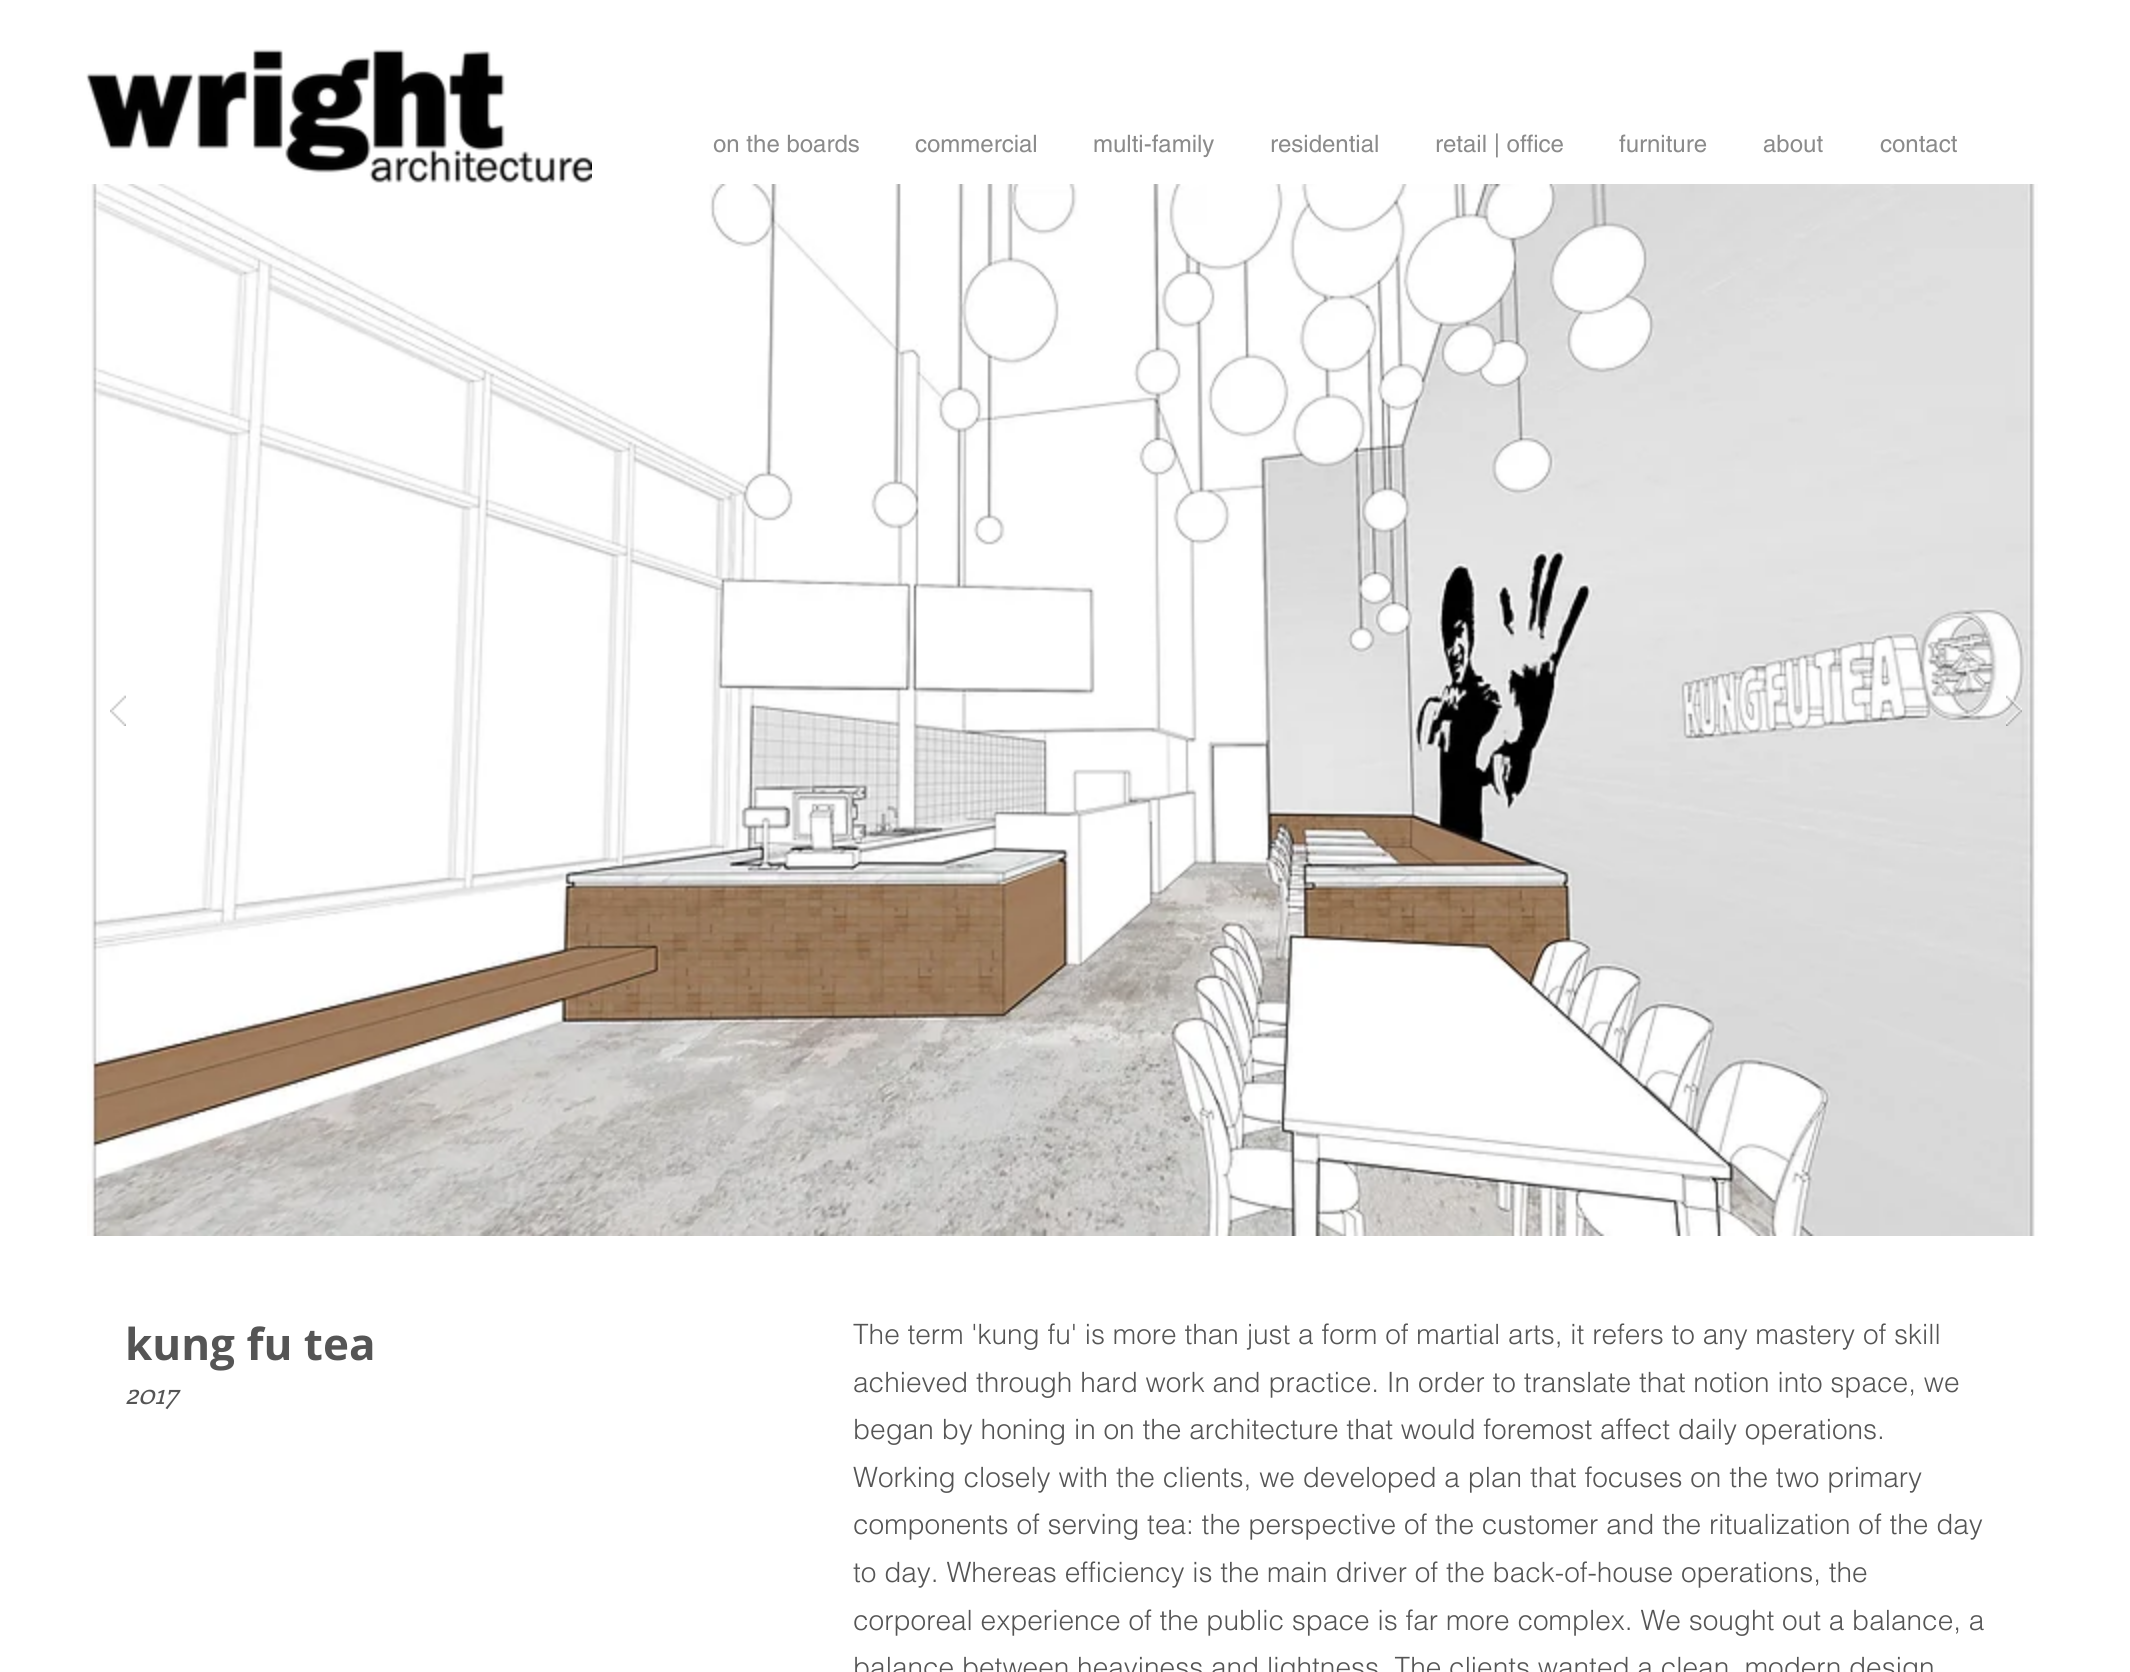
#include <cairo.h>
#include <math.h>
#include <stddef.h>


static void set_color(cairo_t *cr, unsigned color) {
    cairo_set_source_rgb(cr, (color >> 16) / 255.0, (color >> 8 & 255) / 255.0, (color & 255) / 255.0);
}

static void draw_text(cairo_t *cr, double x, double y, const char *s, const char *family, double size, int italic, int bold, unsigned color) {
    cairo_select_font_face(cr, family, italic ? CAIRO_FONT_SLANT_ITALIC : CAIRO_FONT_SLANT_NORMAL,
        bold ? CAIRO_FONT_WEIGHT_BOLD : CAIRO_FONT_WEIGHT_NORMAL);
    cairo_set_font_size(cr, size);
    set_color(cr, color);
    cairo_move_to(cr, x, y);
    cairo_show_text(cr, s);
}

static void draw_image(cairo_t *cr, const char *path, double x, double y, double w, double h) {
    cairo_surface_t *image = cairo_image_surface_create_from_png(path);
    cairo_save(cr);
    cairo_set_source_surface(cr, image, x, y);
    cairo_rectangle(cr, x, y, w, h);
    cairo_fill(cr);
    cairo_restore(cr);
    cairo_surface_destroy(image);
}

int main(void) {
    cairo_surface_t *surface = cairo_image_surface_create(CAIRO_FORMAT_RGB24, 2130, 1672);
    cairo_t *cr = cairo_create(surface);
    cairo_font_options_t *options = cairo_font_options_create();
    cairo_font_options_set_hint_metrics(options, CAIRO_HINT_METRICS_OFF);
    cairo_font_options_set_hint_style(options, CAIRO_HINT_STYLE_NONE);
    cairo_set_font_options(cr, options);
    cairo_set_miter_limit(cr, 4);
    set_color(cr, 0xFFFFFF);
    cairo_paint(cr);
    draw_image(cr, "assets/img1.png", 86, 49, 506, 134);
    draw_text(cr, 713, 152, "on the boards", "helvetica", 24, 0, 0, 0x8B8B8B);
    draw_text(cr, 915, 152, "commercial", "helvetica", 24, 0, 0, 0x8B8B8B);
    draw_text(cr, 1093, 152, "multi-family", "helvetica", 24, 0, 0, 0x8B8B8B);
    draw_text(cr, 1270, 152, "residential", "helvetica", 24, 0, 0, 0x8B8B8B);
    draw_text(cr, 1435, 152, "retail | office", "helvetica", 24, 0, 0, 0x8B8B8B);
    draw_text(cr, 1619, 152, "furniture", "helvetica", 24, 0, 0, 0x8B8B8B);
    draw_text(cr, 1763, 152, "about", "helvetica", 24, 0, 0, 0x8B8B8B);
    draw_text(cr, 1880, 152, "contact", "helvetica", 24, 0, 0, 0x8B8B8B);
    draw_image(cr, "assets/img2.png", 87, 184, 1951, 1052);
    draw_image(cr, "assets/img3.png", 110, 695, 16, 31);
    draw_image(cr, "assets/img4.png", 2006, 695, 16, 31);
    draw_text(cr, 125, 1360, "kung fu tea", "Open Sans", 44, 0, 1, 0x555555);
    draw_text(cr, 125, 1404, "2017", "Enriqueta", 28, 1, 0, 0x555555);
    draw_text(cr, 853, 1344, "The term 'kung fu' is more than just a form of martial arts, it refers to any mastery of skill", "helvetica Light", 28, 0, 0, 0x555555);
    draw_text(cr, 853, 1392, "achieved through hard work and practice. In order to translate that notion into space, we", "helvetica Light", 28, 0, 0, 0x555555);
    draw_text(cr, 853, 1439, "began by honing in on the architecture that would foremost affect daily operations.", "helvetica Light", 28, 0, 0, 0x555555);
    draw_text(cr, 853, 1487, "Working closely with the clients, we developed a plan that focuses on the two primary", "helvetica Light", 28, 0, 0, 0x555555);
    draw_text(cr, 853, 1534, "components of serving tea: the perspective of the customer and the ritualization of the day", "helvetica Light", 28, 0, 0, 0x555555);
    draw_text(cr, 853, 1582, "to day. Whereas efficiency is the main driver of the back-of-house operations, the", "helvetica Light", 28, 0, 0, 0x555555);
    draw_text(cr, 853, 1630, "corporeal experience of the public space is far more complex. We sought out a balance, a", "helvetica Light", 28, 0, 0, 0x555555);
    draw_text(cr, 853, 1677, "balance between heaviness and lightness. The clients wanted a clean, modern design", "helvetica Light", 28, 0, 0, 0x555555);
    cairo_surface_write_to_png(surface, "output.png");
    cairo_font_options_destroy(options);
    cairo_destroy(cr);
    cairo_surface_destroy(surface);
    return 0;
}
